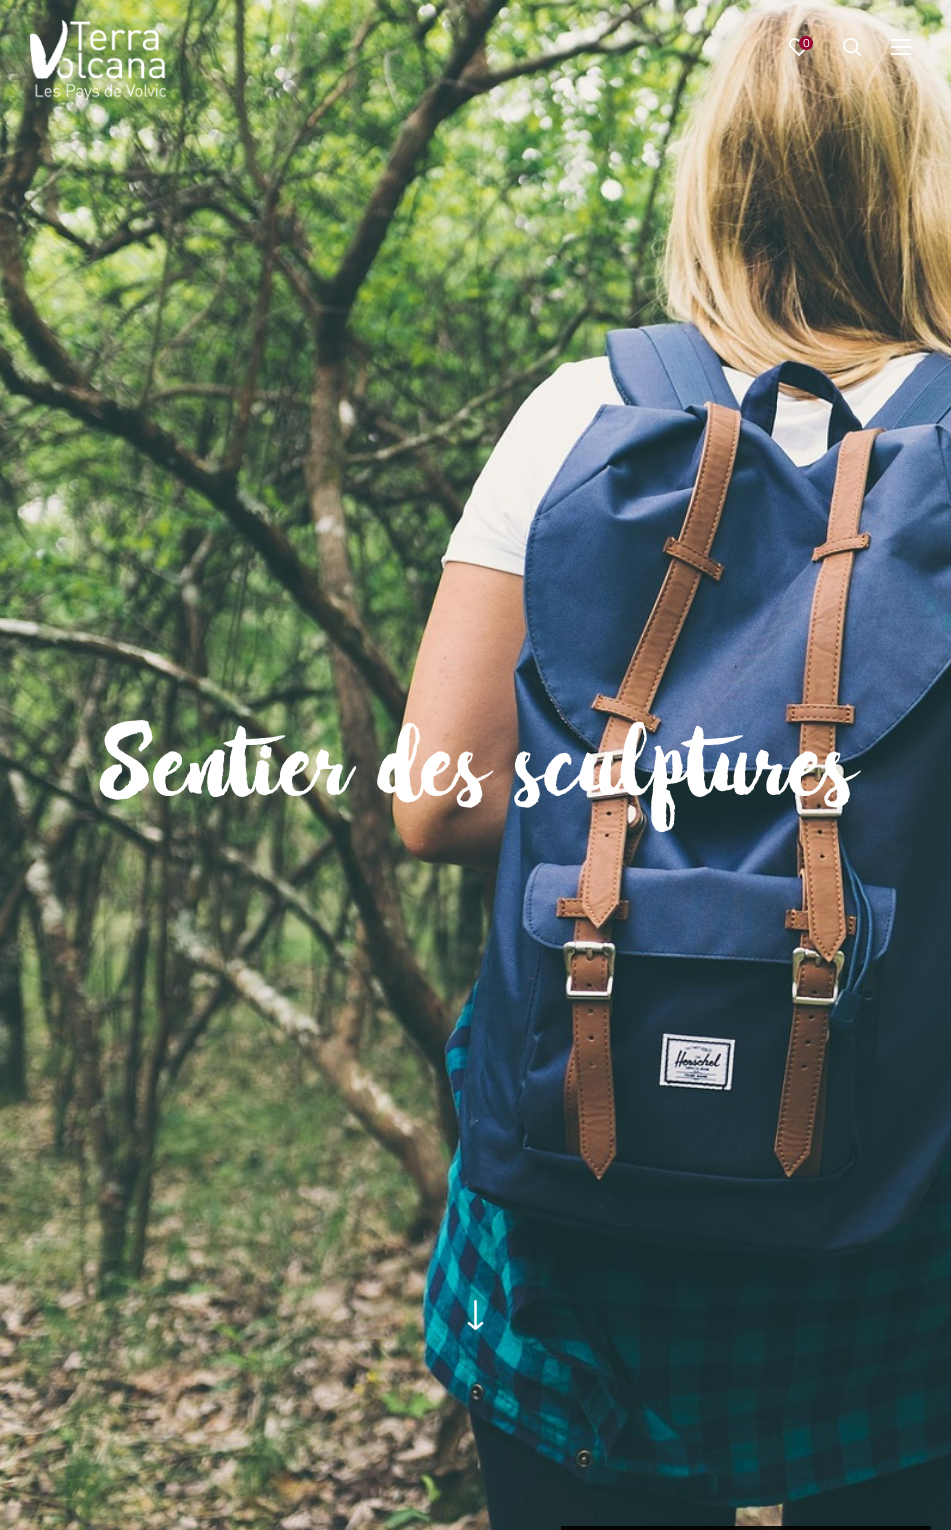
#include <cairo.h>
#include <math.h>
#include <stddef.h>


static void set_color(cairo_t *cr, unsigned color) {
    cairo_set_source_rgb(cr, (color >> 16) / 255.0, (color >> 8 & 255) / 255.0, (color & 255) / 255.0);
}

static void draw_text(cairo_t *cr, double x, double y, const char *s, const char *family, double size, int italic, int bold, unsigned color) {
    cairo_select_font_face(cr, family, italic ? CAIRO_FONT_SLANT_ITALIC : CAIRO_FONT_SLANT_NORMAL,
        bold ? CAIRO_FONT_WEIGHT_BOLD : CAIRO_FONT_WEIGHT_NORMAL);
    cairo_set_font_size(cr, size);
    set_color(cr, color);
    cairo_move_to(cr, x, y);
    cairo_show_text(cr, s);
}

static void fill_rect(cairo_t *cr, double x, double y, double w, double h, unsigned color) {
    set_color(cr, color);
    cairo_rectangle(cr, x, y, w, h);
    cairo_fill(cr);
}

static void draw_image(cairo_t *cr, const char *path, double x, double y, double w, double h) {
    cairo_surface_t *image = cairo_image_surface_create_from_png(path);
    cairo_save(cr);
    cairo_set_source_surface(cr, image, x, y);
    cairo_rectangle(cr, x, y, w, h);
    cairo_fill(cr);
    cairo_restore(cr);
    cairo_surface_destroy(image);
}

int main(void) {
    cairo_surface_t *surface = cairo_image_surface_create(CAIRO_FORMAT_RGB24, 951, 1530);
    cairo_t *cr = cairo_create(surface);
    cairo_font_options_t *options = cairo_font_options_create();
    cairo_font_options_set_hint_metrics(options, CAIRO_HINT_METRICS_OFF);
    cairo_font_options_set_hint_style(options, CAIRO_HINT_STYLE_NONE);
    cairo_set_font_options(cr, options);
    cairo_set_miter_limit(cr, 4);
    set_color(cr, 0xFFFFFF);
    cairo_paint(cr);
    draw_image(cr, "assets/img4.png", 0, 0, 951, 1530);
    draw_image(cr, "assets/img1.png", 30, 20, 136, 80);
    draw_image(cr, "assets/img2.png", 789, 38, 18, 18);
    set_color(cr, 0x990631);
    cairo_arc(cr, 806, 43, 7, 0, 2 * M_PI);
    cairo_fill(cr);
    draw_text(cr, 803, 47, "0", "Titillium Web", 12, 0, 0, 0xFFFFFF);
    draw_image(cr, "assets/img3.png", 843, 38, 18, 18);
    fill_rect(cr, 891, 39, 20, 2, 0xFFFFFF);
    fill_rect(cr, 891, 46, 20, 2, 0xFFFFFF);
    fill_rect(cr, 891, 53, 20, 2, 0xFFFFFF);
    draw_text(cr, 94, 797, "Sentier des sculptures", "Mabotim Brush", 110, 0, 0, 0xFFFFFF);
    draw_image(cr, "assets/img5.png", 467, 1300, 17, 30);
    cairo_set_source_rgba(cr, 0, 0, 0, 0.9);
    cairo_rectangle(cr, 561, 1526, 370, 4);
    cairo_fill(cr);
    cairo_surface_write_to_png(surface, "output.png");
    cairo_font_options_destroy(options);
    cairo_destroy(cr);
    cairo_surface_destroy(surface);
    return 0;
}
